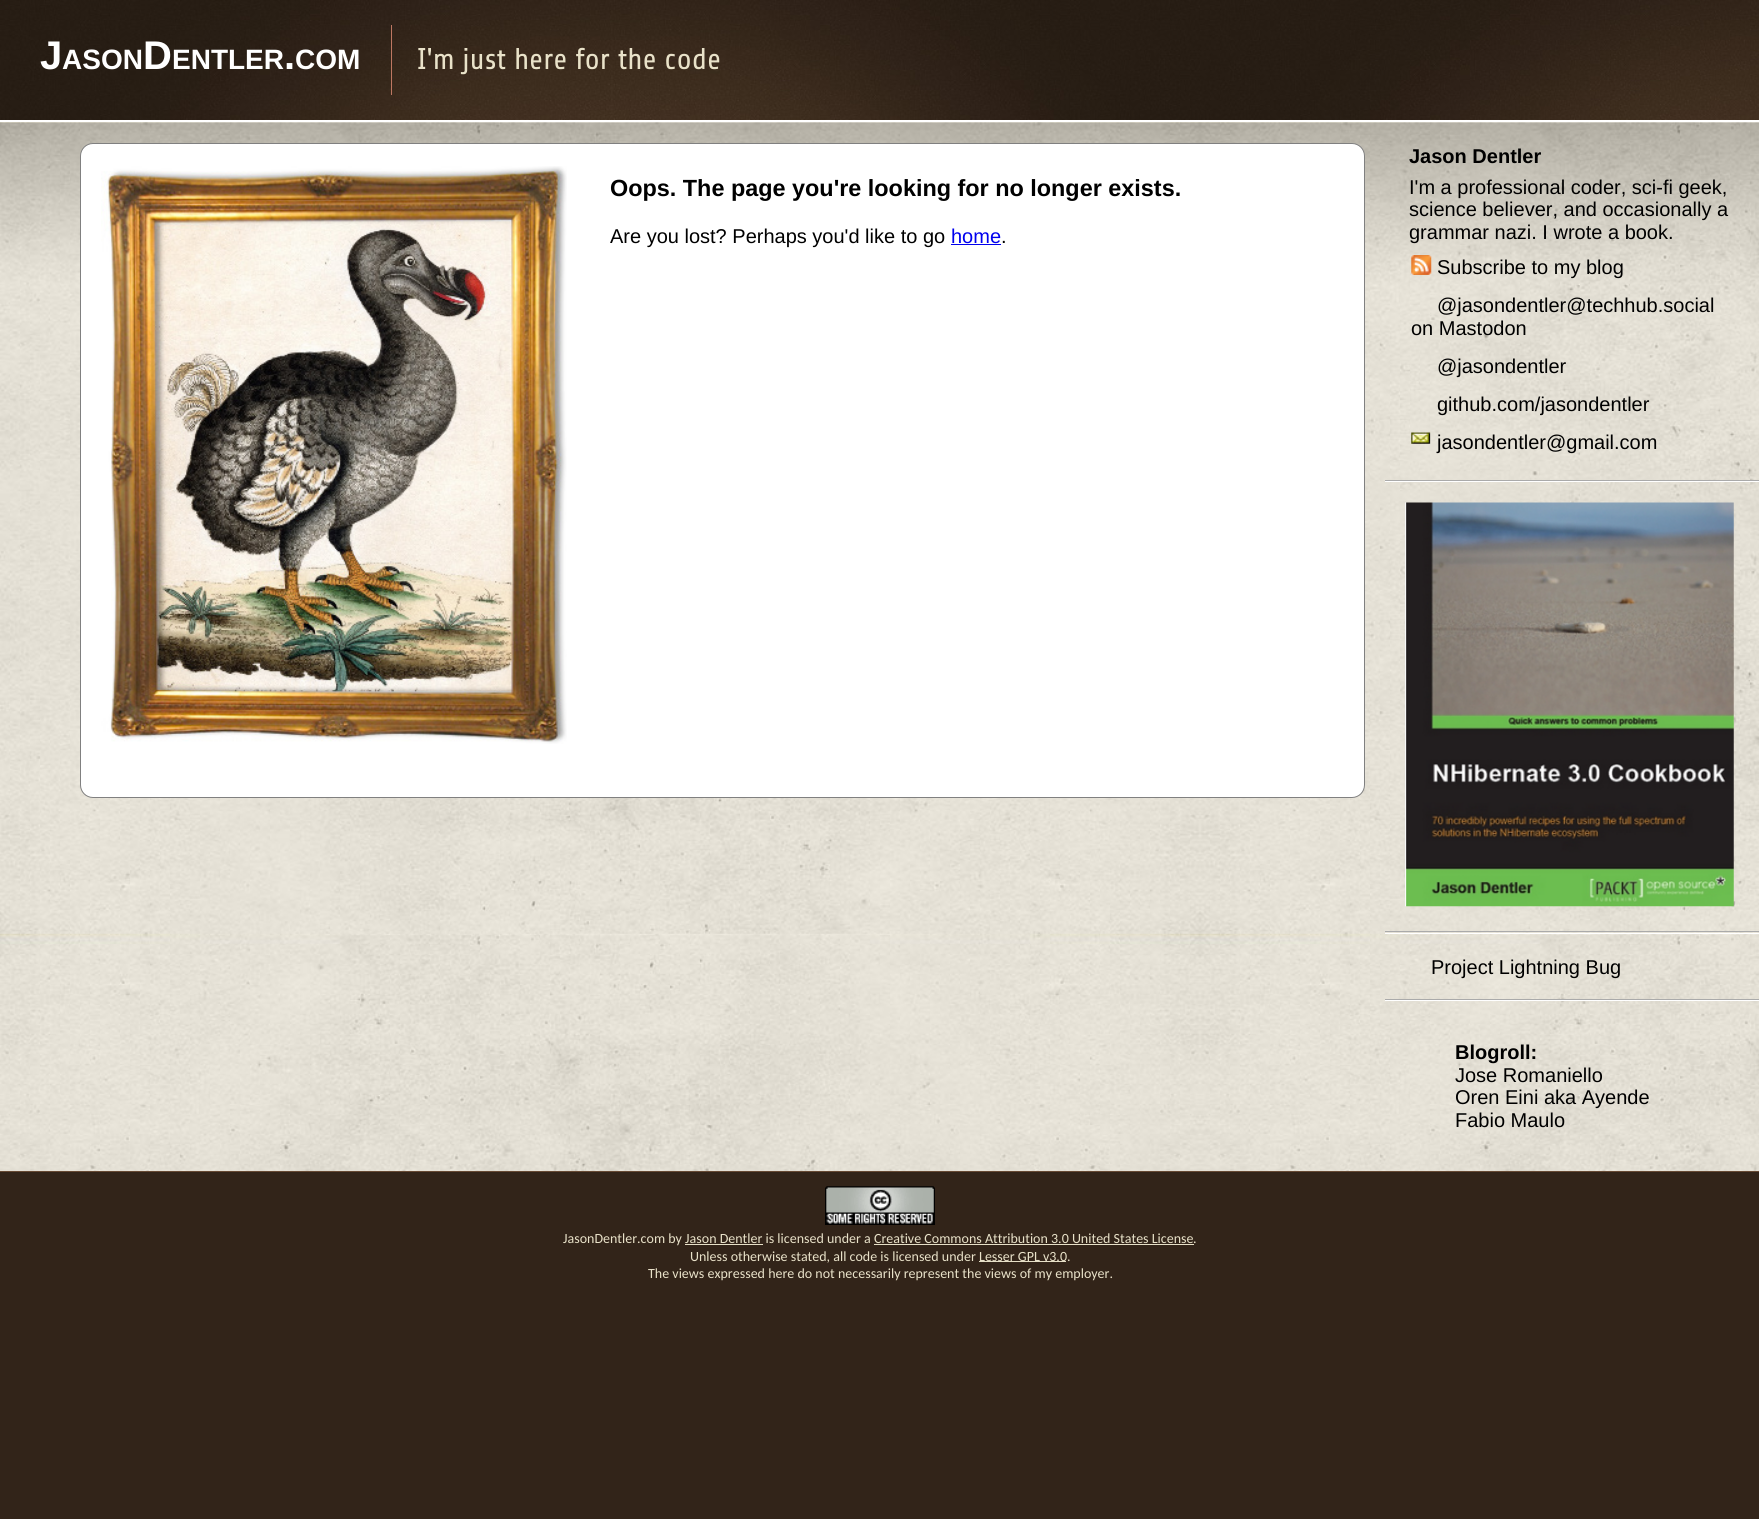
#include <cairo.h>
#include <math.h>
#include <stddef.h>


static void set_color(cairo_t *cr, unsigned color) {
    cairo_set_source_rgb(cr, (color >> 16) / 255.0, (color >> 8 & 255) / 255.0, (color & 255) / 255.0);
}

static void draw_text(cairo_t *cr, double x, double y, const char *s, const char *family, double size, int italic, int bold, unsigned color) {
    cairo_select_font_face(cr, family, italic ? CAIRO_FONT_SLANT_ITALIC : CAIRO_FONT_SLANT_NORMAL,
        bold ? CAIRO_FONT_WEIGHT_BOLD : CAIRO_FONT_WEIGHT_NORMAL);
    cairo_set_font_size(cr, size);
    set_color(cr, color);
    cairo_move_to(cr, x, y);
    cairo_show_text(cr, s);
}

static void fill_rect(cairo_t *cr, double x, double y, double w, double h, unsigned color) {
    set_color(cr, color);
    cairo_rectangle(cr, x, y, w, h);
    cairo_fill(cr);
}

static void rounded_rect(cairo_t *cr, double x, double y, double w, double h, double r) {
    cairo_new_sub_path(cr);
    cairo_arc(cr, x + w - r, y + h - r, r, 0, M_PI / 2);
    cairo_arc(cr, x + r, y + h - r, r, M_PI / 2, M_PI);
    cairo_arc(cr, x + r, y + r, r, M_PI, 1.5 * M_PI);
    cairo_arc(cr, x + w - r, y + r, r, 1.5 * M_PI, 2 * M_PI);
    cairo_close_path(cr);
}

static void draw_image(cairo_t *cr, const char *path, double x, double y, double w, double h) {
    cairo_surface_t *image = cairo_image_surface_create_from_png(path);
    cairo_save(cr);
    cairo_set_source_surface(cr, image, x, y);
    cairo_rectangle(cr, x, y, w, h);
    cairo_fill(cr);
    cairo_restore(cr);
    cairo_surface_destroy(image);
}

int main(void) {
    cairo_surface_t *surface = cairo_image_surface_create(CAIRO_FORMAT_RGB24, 1759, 1519);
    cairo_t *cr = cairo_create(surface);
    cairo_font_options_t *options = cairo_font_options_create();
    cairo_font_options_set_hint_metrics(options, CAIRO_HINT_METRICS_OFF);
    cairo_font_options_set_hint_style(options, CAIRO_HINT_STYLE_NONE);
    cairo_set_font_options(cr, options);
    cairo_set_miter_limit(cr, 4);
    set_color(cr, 0x322419);
    cairo_paint(cr);
    draw_image(cr, "assets/img1.png", 0, 0, 1759, 120);
    draw_text(cr, 40, 69, "J", "Liberation Sans", 40, 0, 1, 0xFFFFFF);
    draw_text(cr, 62, 69, "ASON", "Liberation Sans", 28, 0, 1, 0xFFFFFF);
    draw_text(cr, 143, 69, "D", "Liberation Sans", 40, 0, 1, 0xFFFFFF);
    draw_text(cr, 172, 69, "ENTLER", "Liberation Sans", 28, 0, 1, 0xFFFFFF);
    draw_text(cr, 284, 69, ".", "Liberation Sans", 40, 0, 1, 0xFFFFFF);
    draw_text(cr, 295, 69, "COM", "Liberation Sans", 28, 0, 1, 0xFFFFFF);
    fill_rect(cr, 391, 25, 1, 70, 0xBE7762);
    draw_text(cr, 417, 69, "I'm just here for the code", "Share", 30, 0, 0, 0xE9E2C9);
    draw_image(cr, "assets/img2.png", 0, 122, 1759, 1049);
    fill_rect(cr, 0, 120, 1759, 2, 0xFFFFFF);
    draw_image(cr, "assets/img3.png", 0, 122, 1759, 251);
    rounded_rect(cr, 80.5, 143.5, 1284, 654, 12.5);
    cairo_fill_preserve(cr);
    set_color(cr, 0x808080);
    cairo_set_line_width(cr, 1);
    cairo_stroke(cr);
    draw_image(cr, "assets/img4.png", 101, 166, 466, 578);
    draw_text(cr, 610, 196, "Oops. The page you're looking for no longer exists.", "Liberation Sans", 23.4, 0, 1, 0x000000);
    draw_text(cr, 610, 243, "Are you lost? Perhaps you'd like to go", "Liberation Sans", 20, 0, 0, 0x000000);
    draw_text(cr, 951, 243, "home", "Liberation Sans", 20, 0, 0, 0x0000EE);
    fill_rect(cr, 951, 244, 50, 1, 0x0000EE);
    draw_text(cr, 1001, 243, ".", "Liberation Sans", 20, 0, 0, 0x000000);
    fill_rect(cr, 1385, 480, 374, 1, 0xAAAAAA);
    draw_text(cr, 1409, 163, "Jason Dentler", "Liberation Sans", 20, 0, 1, 0x000000);
    draw_text(cr, 1409, 194, "I'm a professional coder, sci-fi geek,", "Liberation Sans", 20, 0, 0, 0x000000);
    draw_text(cr, 1409, 216, "science believer, and occasionally a", "Liberation Sans", 20, 0, 0, 0x000000);
    draw_text(cr, 1409, 239, "grammar nazi. I wrote a book.", "Liberation Sans", 20, 0, 0, 0x000000);
    draw_image(cr, "assets/img5.png", 1411, 255, 21, 20);
    draw_text(cr, 1437, 274, "Subscribe to my blog", "Liberation Sans", 20, 0, 0, 0x000000);
    draw_text(cr, 1437, 312, "@jasondentler@techhub.social", "Liberation Sans", 20, 0, 0, 0x000000);
    draw_text(cr, 1411, 335, "on Mastodon", "Liberation Sans", 20, 0, 0, 0x000000);
    draw_text(cr, 1437, 373, "@jasondentler", "Liberation Sans", 20, 0, 0, 0x000000);
    draw_text(cr, 1437, 411, "github.com/jasondentler", "Liberation Sans", 20, 0, 0, 0x000000);
    draw_image(cr, "assets/img6.png", 1411, 432, 20, 12);
    draw_text(cr, 1437, 449, "jasondentler@gmail.com", "Liberation Sans", 20, 0, 0, 0x000000);
    fill_rect(cr, 1385, 481, 374, 1, 0xFFFFFF);
    fill_rect(cr, 1385, 931, 374, 1, 0xAAAAAA);
    draw_image(cr, "assets/img7.png", 1405, 502, 329, 405);
    fill_rect(cr, 1385, 933, 374, 1, 0xFFFFFF);
    fill_rect(cr, 1385, 999, 374, 1, 0xAAAAAA);
    draw_text(cr, 1431, 974, "Project Lightning Bug", "Liberation Sans", 20, 0, 0, 0x000000);
    fill_rect(cr, 1385, 1000, 374, 1, 0xFFFFFF);
    draw_text(cr, 1455, 1059, "Blogroll:", "Liberation Sans", 20, 0, 1, 0x000000);
    draw_text(cr, 1455, 1082, "Jose Romaniello", "Liberation Sans", 20, 0, 0, 0x000000);
    draw_text(cr, 1455, 1104, "Oren Eini aka Ayende", "Liberation Sans", 20, 0, 0, 0x000000);
    draw_text(cr, 1455, 1127, "Fabio Maulo", "Liberation Sans", 20, 0, 0, 0x000000);
    fill_rect(cr, 0, 1171, 1759, 1, 0x664933);
    draw_image(cr, "assets/img8.png", 825, 1186, 110, 39);
    draw_text(cr, 563, 1243, "JasonDentler.com by Jason Dentler is licensed under a Creative Commons Attribution 3.0 United States License", "Carlito", 14, 0, 0, 0xE9E2C9);
    draw_text(cr, 1193, 1243, ".", "Carlito", 14, 0, 0, 0xE9E2C9);
    fill_rect(cr, 685, 1244, 78, 1, 0xE7E0C7);
    fill_rect(cr, 874, 1244, 320, 1, 0xE7E0C7);
    draw_text(cr, 690, 1261, "Unless otherwise stated, all code is licensed under", "Carlito", 14, 0, 0, 0xE9E2C9);
    fill_rect(cr, 979, 1261, 87, 1, 0xE7E0C7);
    draw_text(cr, 979, 1261, "Lesser GPL v3.0.", "Carlito", 14, 0, 0, 0xE9E2C9);
    draw_text(cr, 648, 1278, "The views expressed here do not necessarily represent the views of my employer.", "Carlito", 14, 0, 0, 0xE9E2C9);
    cairo_surface_write_to_png(surface, "output.png");
    cairo_font_options_destroy(options);
    cairo_destroy(cr);
    cairo_surface_destroy(surface);
    return 0;
}
